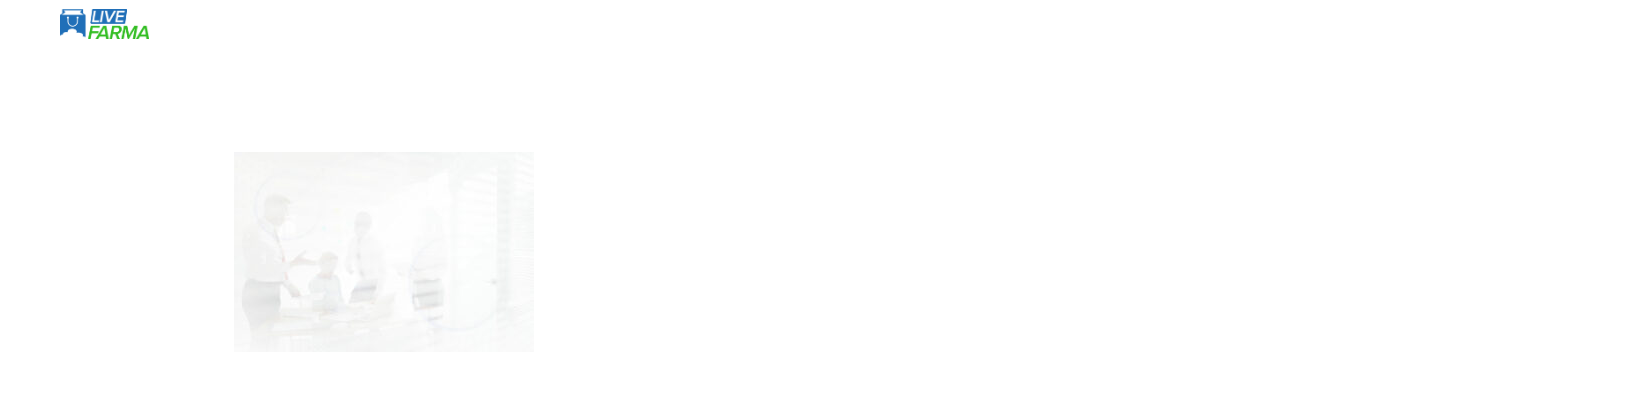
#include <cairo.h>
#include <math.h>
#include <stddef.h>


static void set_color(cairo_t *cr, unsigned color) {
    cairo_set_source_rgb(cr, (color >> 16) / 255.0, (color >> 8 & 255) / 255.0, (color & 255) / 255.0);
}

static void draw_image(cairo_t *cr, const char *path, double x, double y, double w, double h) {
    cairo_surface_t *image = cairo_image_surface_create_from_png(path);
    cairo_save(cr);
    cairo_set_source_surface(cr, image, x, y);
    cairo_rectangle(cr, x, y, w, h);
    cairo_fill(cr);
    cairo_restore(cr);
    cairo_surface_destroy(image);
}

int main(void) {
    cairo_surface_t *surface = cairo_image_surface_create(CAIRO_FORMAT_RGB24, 1637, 409);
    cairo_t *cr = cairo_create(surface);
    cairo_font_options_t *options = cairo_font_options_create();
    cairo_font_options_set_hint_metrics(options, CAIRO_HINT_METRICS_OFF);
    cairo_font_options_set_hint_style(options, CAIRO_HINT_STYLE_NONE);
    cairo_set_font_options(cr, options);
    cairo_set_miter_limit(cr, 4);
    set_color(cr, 0xFFFFFF);
    cairo_paint(cr);
    draw_image(cr, "assets/img1.png", 60, 9, 89, 30);
    draw_image(cr, "assets/img2.png", 234, 152, 300, 200);
    cairo_surface_write_to_png(surface, "output.png");
    cairo_font_options_destroy(options);
    cairo_destroy(cr);
    cairo_surface_destroy(surface);
    return 0;
}
